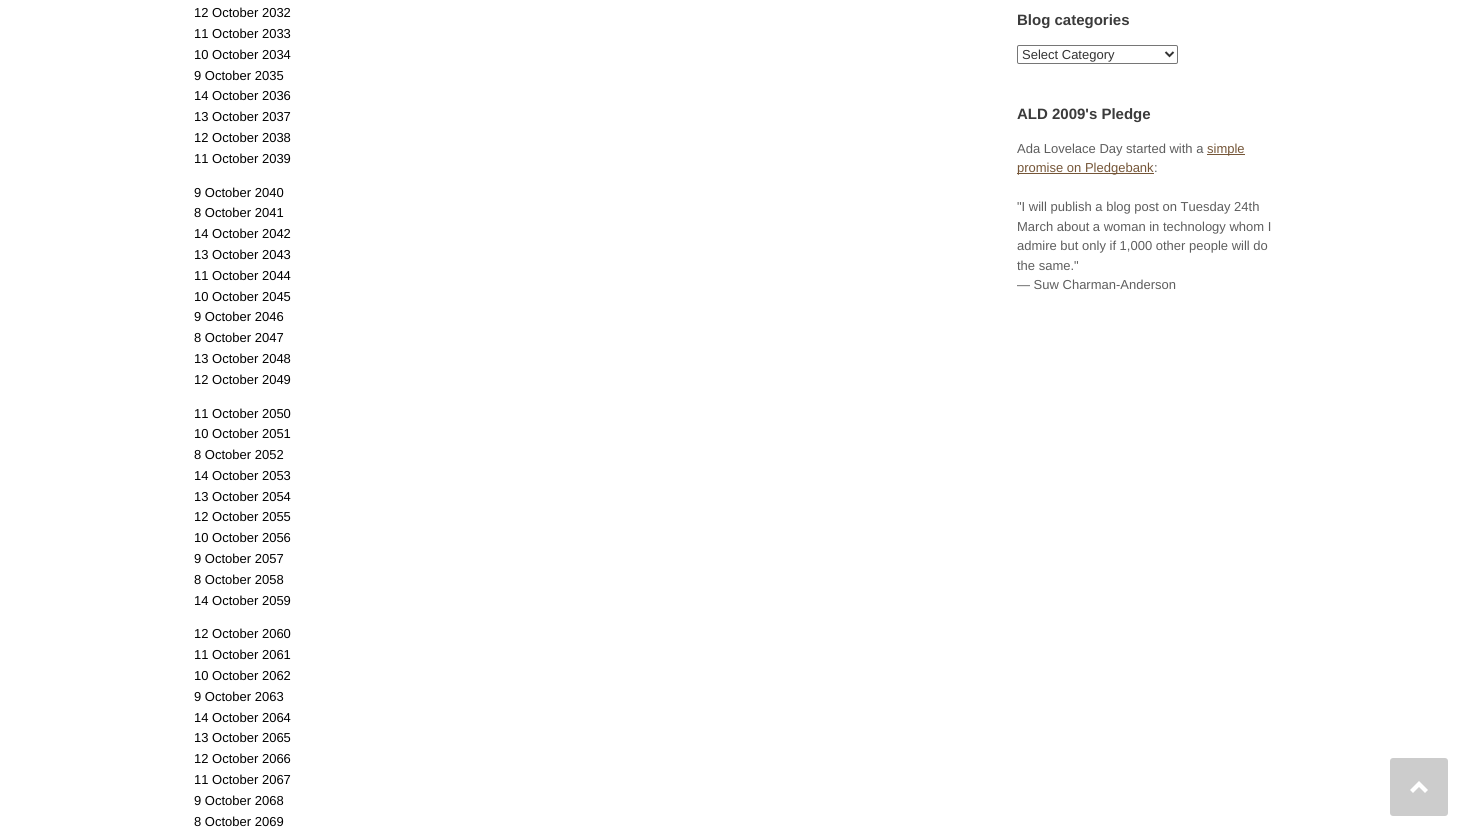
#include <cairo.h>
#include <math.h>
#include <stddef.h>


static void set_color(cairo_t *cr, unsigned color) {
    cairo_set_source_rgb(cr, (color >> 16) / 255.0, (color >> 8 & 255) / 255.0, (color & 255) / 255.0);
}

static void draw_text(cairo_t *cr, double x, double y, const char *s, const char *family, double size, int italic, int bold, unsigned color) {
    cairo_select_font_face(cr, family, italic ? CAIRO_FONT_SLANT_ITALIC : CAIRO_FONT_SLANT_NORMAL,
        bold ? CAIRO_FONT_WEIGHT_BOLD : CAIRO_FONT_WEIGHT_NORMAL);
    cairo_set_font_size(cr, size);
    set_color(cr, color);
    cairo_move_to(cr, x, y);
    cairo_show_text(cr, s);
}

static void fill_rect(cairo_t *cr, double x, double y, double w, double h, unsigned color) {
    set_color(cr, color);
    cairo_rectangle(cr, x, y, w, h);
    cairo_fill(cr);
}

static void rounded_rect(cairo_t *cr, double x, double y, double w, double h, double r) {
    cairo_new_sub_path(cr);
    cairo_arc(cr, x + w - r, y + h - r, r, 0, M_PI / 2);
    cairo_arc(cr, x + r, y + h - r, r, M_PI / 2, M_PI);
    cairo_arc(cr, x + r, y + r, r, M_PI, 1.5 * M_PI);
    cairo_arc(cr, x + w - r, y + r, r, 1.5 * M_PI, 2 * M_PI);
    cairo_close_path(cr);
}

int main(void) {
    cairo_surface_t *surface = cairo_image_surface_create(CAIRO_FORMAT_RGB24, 1468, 836);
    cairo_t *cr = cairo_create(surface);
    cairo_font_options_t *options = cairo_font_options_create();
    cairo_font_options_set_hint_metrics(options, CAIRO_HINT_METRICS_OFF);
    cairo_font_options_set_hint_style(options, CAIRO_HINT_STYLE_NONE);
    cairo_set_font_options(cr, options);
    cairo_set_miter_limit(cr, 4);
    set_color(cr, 0xFFFFFF);
    cairo_paint(cr);
    draw_text(cr, 194, 17, "12 October 2032", "Liberation Sans", 13, 0, 0, 0x000000);
    draw_text(cr, 194, 38, "11 October 2033", "Liberation Sans", 13, 0, 0, 0x000000);
    draw_text(cr, 194, 59, "10 October 2034", "Liberation Sans", 13, 0, 0, 0x000000);
    draw_text(cr, 194, 80, "9 October 2035", "Liberation Sans", 13, 0, 0, 0x000000);
    draw_text(cr, 194, 100, "14 October 2036", "Liberation Sans", 13, 0, 0, 0x000000);
    draw_text(cr, 194, 121, "13 October 2037", "Liberation Sans", 13, 0, 0, 0x000000);
    draw_text(cr, 194, 142, "12 October 2038", "Liberation Sans", 13, 0, 0, 0x000000);
    draw_text(cr, 194, 163, "11 October 2039", "Liberation Sans", 13, 0, 0, 0x000000);
    draw_text(cr, 194, 197, "9 October 2040", "Liberation Sans", 13, 0, 0, 0x000000);
    draw_text(cr, 194, 217, "8 October 2041", "Liberation Sans", 13, 0, 0, 0x000000);
    draw_text(cr, 194, 238, "14 October 2042", "Liberation Sans", 13, 0, 0, 0x000000);
    draw_text(cr, 194, 259, "13 October 2043", "Liberation Sans", 13, 0, 0, 0x000000);
    draw_text(cr, 194, 280, "11 October 2044", "Liberation Sans", 13, 0, 0, 0x000000);
    draw_text(cr, 194, 301, "10 October 2045", "Liberation Sans", 13, 0, 0, 0x000000);
    draw_text(cr, 194, 321, "9 October 2046", "Liberation Sans", 13, 0, 0, 0x000000);
    draw_text(cr, 194, 342, "8 October 2047", "Liberation Sans", 13, 0, 0, 0x000000);
    draw_text(cr, 194, 363, "13 October 2048", "Liberation Sans", 13, 0, 0, 0x000000);
    draw_text(cr, 194, 384, "12 October 2049", "Liberation Sans", 13, 0, 0, 0x000000);
    draw_text(cr, 194, 418, "11 October 2050", "Liberation Sans", 13, 0, 0, 0x000000);
    draw_text(cr, 194, 438, "10 October 2051", "Liberation Sans", 13, 0, 0, 0x000000);
    draw_text(cr, 194, 459, "8 October 2052", "Liberation Sans", 13, 0, 0, 0x000000);
    draw_text(cr, 194, 480, "14 October 2053", "Liberation Sans", 13, 0, 0, 0x000000);
    draw_text(cr, 194, 501, "13 October 2054", "Liberation Sans", 13, 0, 0, 0x000000);
    draw_text(cr, 194, 521, "12 October 2055", "Liberation Sans", 13, 0, 0, 0x000000);
    draw_text(cr, 194, 542, "10 October 2056", "Liberation Sans", 13, 0, 0, 0x000000);
    draw_text(cr, 194, 563, "9 October 2057", "Liberation Sans", 13, 0, 0, 0x000000);
    draw_text(cr, 194, 584, "8 October 2058", "Liberation Sans", 13, 0, 0, 0x000000);
    draw_text(cr, 194, 605, "14 October 2059", "Liberation Sans", 13, 0, 0, 0x000000);
    draw_text(cr, 194, 638, "12 October 2060", "Liberation Sans", 13, 0, 0, 0x000000);
    draw_text(cr, 194, 659, "11 October 2061", "Liberation Sans", 13, 0, 0, 0x000000);
    draw_text(cr, 194, 680, "10 October 2062", "Liberation Sans", 13, 0, 0, 0x000000);
    draw_text(cr, 194, 701, "9 October 2063", "Liberation Sans", 13, 0, 0, 0x000000);
    draw_text(cr, 194, 722, "14 October 2064", "Liberation Sans", 13, 0, 0, 0x000000);
    draw_text(cr, 194, 742, "13 October 2065", "Liberation Sans", 13, 0, 0, 0x000000);
    draw_text(cr, 194, 763, "12 October 2066", "Liberation Sans", 13, 0, 0, 0x000000);
    draw_text(cr, 194, 784, "11 October 2067", "Liberation Sans", 13, 0, 0, 0x000000);
    draw_text(cr, 194, 805, "9 October 2068", "Liberation Sans", 13, 0, 0, 0x000000);
    draw_text(cr, 194, 826, "8 October 2069", "Liberation Sans", 13, 0, 0, 0x000000);
    draw_text(cr, 1017, 25, "Blog categories", "Liberation Sans", 15, 0, 1, 0x3B3B3B);
    rounded_rect(cr, 1017.5, 45.5, 160, 18, 1.5);
    set_color(cr, 0x767676);
    cairo_set_line_width(cr, 1);
    cairo_stroke(cr);
    cairo_new_path(cr);
    cairo_move_to(cr, 1165.5, 52);
    cairo_line_to(cr, 1169.5, 56);
    cairo_line_to(cr, 1173.5, 52);
    set_color(cr, 0x333333);
    cairo_set_line_width(cr, 2);
    cairo_stroke(cr);
    draw_text(cr, 1022, 59, "Select Category", "Liberation Sans", 13, 0, 0, 0x333333);
    draw_text(cr, 1017, 119, "ALD 2009's Pledge", "Liberation Sans", 15, 0, 1, 0x3B3B3B);
    draw_text(cr, 1017, 153, "Ada Lovelace Day started with a", "Liberation Sans", 13, 0, 0, 0x5E5E5E);
    fill_rect(cr, 1207, 154, 38, 1, 0x755638);
    draw_text(cr, 1207, 153, "simple", "Liberation Sans", 13, 0, 0, 0x755638);
    fill_rect(cr, 1017, 173, 137, 1, 0x755638);
    draw_text(cr, 1017, 172, "promise on Pledgebank", "Liberation Sans", 13, 0, 0, 0x755638);
    draw_text(cr, 1154, 172, ":", "Liberation Sans", 13, 0, 0, 0x5E5E5E);
    draw_text(cr, 1017, 211, "\"I will publish a blog post on Tuesday 24th", "Liberation Sans", 13, 0, 0, 0x5E5E5E);
    draw_text(cr, 1017, 231, "March about a woman in technology whom I", "Liberation Sans", 13, 0, 0, 0x5E5E5E);
    draw_text(cr, 1017, 250, "admire but only if 1,000 other people will do", "Liberation Sans", 13, 0, 0, 0x5E5E5E);
    draw_text(cr, 1017, 270, "the same.\"", "Liberation Sans", 13, 0, 0, 0x5E5E5E);
    draw_text(cr, 1017, 289, "— Suw Charman-Anderson", "Liberation Sans", 13, 0, 0, 0x5E5E5E);
    set_color(cr, 0xCCCCCC);
    rounded_rect(cr, 1390, 758, 58, 58, 3);
    cairo_fill(cr);
    set_color(cr, 0xFFFFFF);
    cairo_new_path(cr);
    cairo_move_to(cr, 1428, 790);
    cairo_line_to(cr, 1419, 781);
    cairo_line_to(cr, 1410, 790);
    cairo_line_to(cr, 1413, 793);
    cairo_line_to(cr, 1419, 787);
    cairo_line_to(cr, 1425, 793);
    cairo_close_path(cr);
    cairo_fill(cr);
    cairo_surface_write_to_png(surface, "output.png");
    cairo_font_options_destroy(options);
    cairo_destroy(cr);
    cairo_surface_destroy(surface);
    return 0;
}
